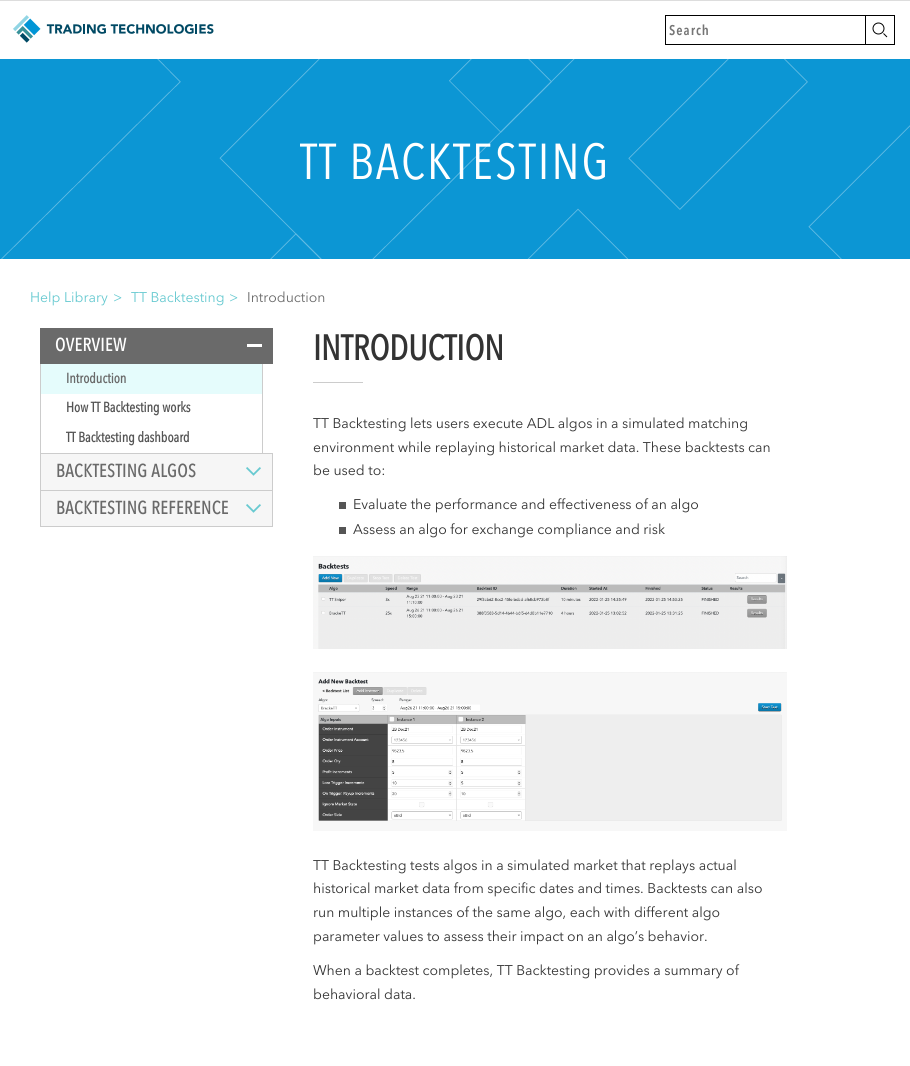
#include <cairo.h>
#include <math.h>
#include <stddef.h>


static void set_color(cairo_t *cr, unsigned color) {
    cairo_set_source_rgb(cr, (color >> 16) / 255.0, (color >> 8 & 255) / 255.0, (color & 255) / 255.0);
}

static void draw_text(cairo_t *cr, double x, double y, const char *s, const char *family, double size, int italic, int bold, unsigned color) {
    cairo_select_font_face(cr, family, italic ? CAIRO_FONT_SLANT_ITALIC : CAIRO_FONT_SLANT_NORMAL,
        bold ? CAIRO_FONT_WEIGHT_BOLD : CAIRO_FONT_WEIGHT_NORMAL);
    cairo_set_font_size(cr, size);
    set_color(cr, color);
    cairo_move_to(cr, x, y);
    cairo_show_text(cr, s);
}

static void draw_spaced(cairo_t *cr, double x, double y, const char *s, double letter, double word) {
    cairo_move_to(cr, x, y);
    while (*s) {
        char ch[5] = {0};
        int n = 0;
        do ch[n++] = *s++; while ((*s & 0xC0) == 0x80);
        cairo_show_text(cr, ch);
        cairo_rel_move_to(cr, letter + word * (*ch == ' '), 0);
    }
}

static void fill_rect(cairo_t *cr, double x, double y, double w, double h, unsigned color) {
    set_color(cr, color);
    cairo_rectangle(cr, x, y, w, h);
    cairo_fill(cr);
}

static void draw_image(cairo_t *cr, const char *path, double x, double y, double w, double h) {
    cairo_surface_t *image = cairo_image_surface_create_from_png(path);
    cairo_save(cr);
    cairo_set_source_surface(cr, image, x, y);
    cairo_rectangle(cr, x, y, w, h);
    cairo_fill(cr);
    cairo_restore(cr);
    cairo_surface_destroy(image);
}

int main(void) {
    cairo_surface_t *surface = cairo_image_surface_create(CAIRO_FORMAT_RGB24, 910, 1066);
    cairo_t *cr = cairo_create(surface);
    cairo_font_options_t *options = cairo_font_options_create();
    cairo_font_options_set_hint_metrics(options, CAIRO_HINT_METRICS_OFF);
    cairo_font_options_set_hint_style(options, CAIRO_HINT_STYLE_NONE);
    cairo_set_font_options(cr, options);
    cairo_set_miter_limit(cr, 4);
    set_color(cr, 0xFFFFFF);
    cairo_paint(cr);
    fill_rect(cr, 0, 0, 910, 1, 0xDDDDDD);
    draw_image(cr, "assets/img1.png", 13, 15, 201, 28);
    fill_rect(cr, 665, 15, 200, 1, 0x000000);
    fill_rect(cr, 665, 44, 200, 1, 0x000000);
    fill_rect(cr, 665, 15, 1, 30, 0x000000);
    cairo_select_font_face(cr, "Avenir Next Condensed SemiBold", CAIRO_FONT_SLANT_NORMAL, CAIRO_FONT_WEIGHT_NORMAL);
    cairo_set_font_size(cr, 14);
    set_color(cr, 0x757575);
    draw_spaced(cr, 669, 35, "Search", 1, 0);
    cairo_new_path(cr);
    cairo_arc(cr, 878.5, 28.5, 5.5, 0, 2 * M_PI);
    set_color(cr, 0x000000);
    cairo_set_line_width(cr, 1);
    cairo_stroke(cr);
    cairo_new_path(cr);
    cairo_move_to(cr, 883.5, 33.5);
    cairo_line_to(cr, 887, 37);
    cairo_stroke(cr);
    cairo_rectangle(cr, 865.5, 15.5, 29, 29);
    cairo_stroke(cr);
    fill_rect(cr, 0, 59, 1, 200, 0x0C96D4);
    draw_image(cr, "assets/img2.png", 1, 59, 909, 200);
    cairo_select_font_face(cr, "Avenir Next Condensed", CAIRO_FONT_SLANT_NORMAL, CAIRO_FONT_WEIGHT_NORMAL);
    cairo_set_font_size(cr, 50);
    set_color(cr, 0xFFFFFF);
    draw_spaced(cr, 300, 179, "TT BACKTESTING", 2, 0);
    draw_text(cr, 30, 302, "Help Library", "Avenir Next", 14, 0, 0, 0x66C9D0);
    draw_text(cr, 113, 302, ">", "Avenir Next", 14, 0, 0, 0x66C9D0);
    draw_text(cr, 131, 302, "TT Backtesting", "Avenir Next", 14, 0, 0, 0x66C9D0);
    draw_text(cr, 229, 302, ">", "Avenir Next", 14, 0, 0, 0x66C9D0);
    draw_text(cr, 247, 302, "Introduction", "Avenir Next", 14, 0, 0, 0x6A6A6A);
    fill_rect(cr, 40, 328, 233, 36, 0x6A6A6A);
    fill_rect(cr, 247, 344, 15, 3, 0xFFFFFF);
    cairo_select_font_face(cr, "Avenir Next Condensed", CAIRO_FONT_SLANT_NORMAL, CAIRO_FONT_WEIGHT_BOLD);
    cairo_set_font_size(cr, 18);
    draw_spaced(cr, 55, 351, "OVERVIEW", 0.5, 0);
    fill_rect(cr, 41, 364, 221, 30, 0xE5FCFC);
    draw_text(cr, 66, 383, "Introduction", "Avenir Next Condensed", 14, 0, 1, 0x6A6A6A);
    fill_rect(cr, 262, 364, 1, 90, 0xCCCCCC);
    fill_rect(cr, 40, 364, 1, 90, 0xCCCCCC);
    draw_text(cr, 66, 412, "How TT Backtesting works", "Avenir Next Condensed", 14, 0, 1, 0x555555);
    draw_text(cr, 66, 442, "TT Backtesting dashboard", "Avenir Next Condensed", 14, 0, 1, 0x555555);
    fill_rect(cr, 41, 454, 231, 36, 0xF6F6F6);
    draw_image(cr, "assets/img3.png", 246, 467, 15, 9);
    cairo_rectangle(cr, 40.5, 453.5, 232, 37);
    set_color(cr, 0xCCCCCC);
    cairo_stroke(cr);
    cairo_set_font_size(cr, 18);
    set_color(cr, 0x6A6A6A);
    draw_spaced(cr, 56, 477, "BACKTESTING ALGOS", 0.5, 0);
    fill_rect(cr, 41, 491, 231, 35, 0xF6F6F6);
    draw_image(cr, "assets/img3.png", 246, 504, 15, 9);
    cairo_rectangle(cr, 40.5, 490.5, 232, 36);
    set_color(cr, 0xCCCCCC);
    cairo_stroke(cr);
    set_color(cr, 0x6A6A6A);
    draw_spaced(cr, 56, 514, "BACKTESTING REFERENCE", 0.5, 0);
    draw_text(cr, 313, 360, "INTRODUCTION", "Avenir Next Condensed", 35, 0, 1, 0x333333);
    fill_rect(cr, 313, 382, 50, 1, 0xCCCCCC);
    draw_text(cr, 313, 428, "TT Backtesting lets users execute ADL algos in a simulated matching", "Avenir Next", 14, 0, 0, 0x333333);
    draw_text(cr, 313, 452, "environment while replaying historical market data. These backtests can", "Avenir Next", 14, 0, 0, 0x333333);
    draw_text(cr, 313, 475, "be used to:", "Avenir Next", 14, 0, 0, 0x333333);
    fill_rect(cr, 339, 502, 7, 7, 0x555555);
    draw_text(cr, 353, 509, "Evaluate the performance and effectiveness of an algo", "Avenir Next", 14, 0, 0, 0x333333);
    fill_rect(cr, 339, 527, 7, 7, 0x555555);
    draw_text(cr, 353, 534, "Assess an algo for exchange compliance and risk", "Avenir Next", 14, 0, 0, 0x333333);
    draw_image(cr, "assets/img4.png", 313, 556, 474, 93);
    draw_image(cr, "assets/img5.png", 313, 672, 474, 159);
    draw_text(cr, 313, 870, "TT Backtesting tests algos in a simulated market that replays actual", "Avenir Next", 14, 0, 0, 0x333333);
    draw_text(cr, 313, 893, "historical market data from specific dates and times. Backtests can also", "Avenir Next", 14, 0, 0, 0x333333);
    draw_text(cr, 313, 917, "run multiple instances of the same algo, each with different algo", "Avenir Next", 14, 0, 0, 0x333333);
    draw_text(cr, 313, 941, "parameter values to assess their impact on an algo’s behavior.", "Avenir Next", 14, 0, 0, 0x333333);
    draw_text(cr, 313, 975, "When a backtest completes, TT Backtesting provides a summary of", "Avenir Next", 14, 0, 0, 0x333333);
    draw_text(cr, 313, 999, "behavioral data.", "Avenir Next", 14, 0, 0, 0x333333);
    cairo_surface_write_to_png(surface, "output.png");
    cairo_font_options_destroy(options);
    cairo_destroy(cr);
    cairo_surface_destroy(surface);
    return 0;
}
